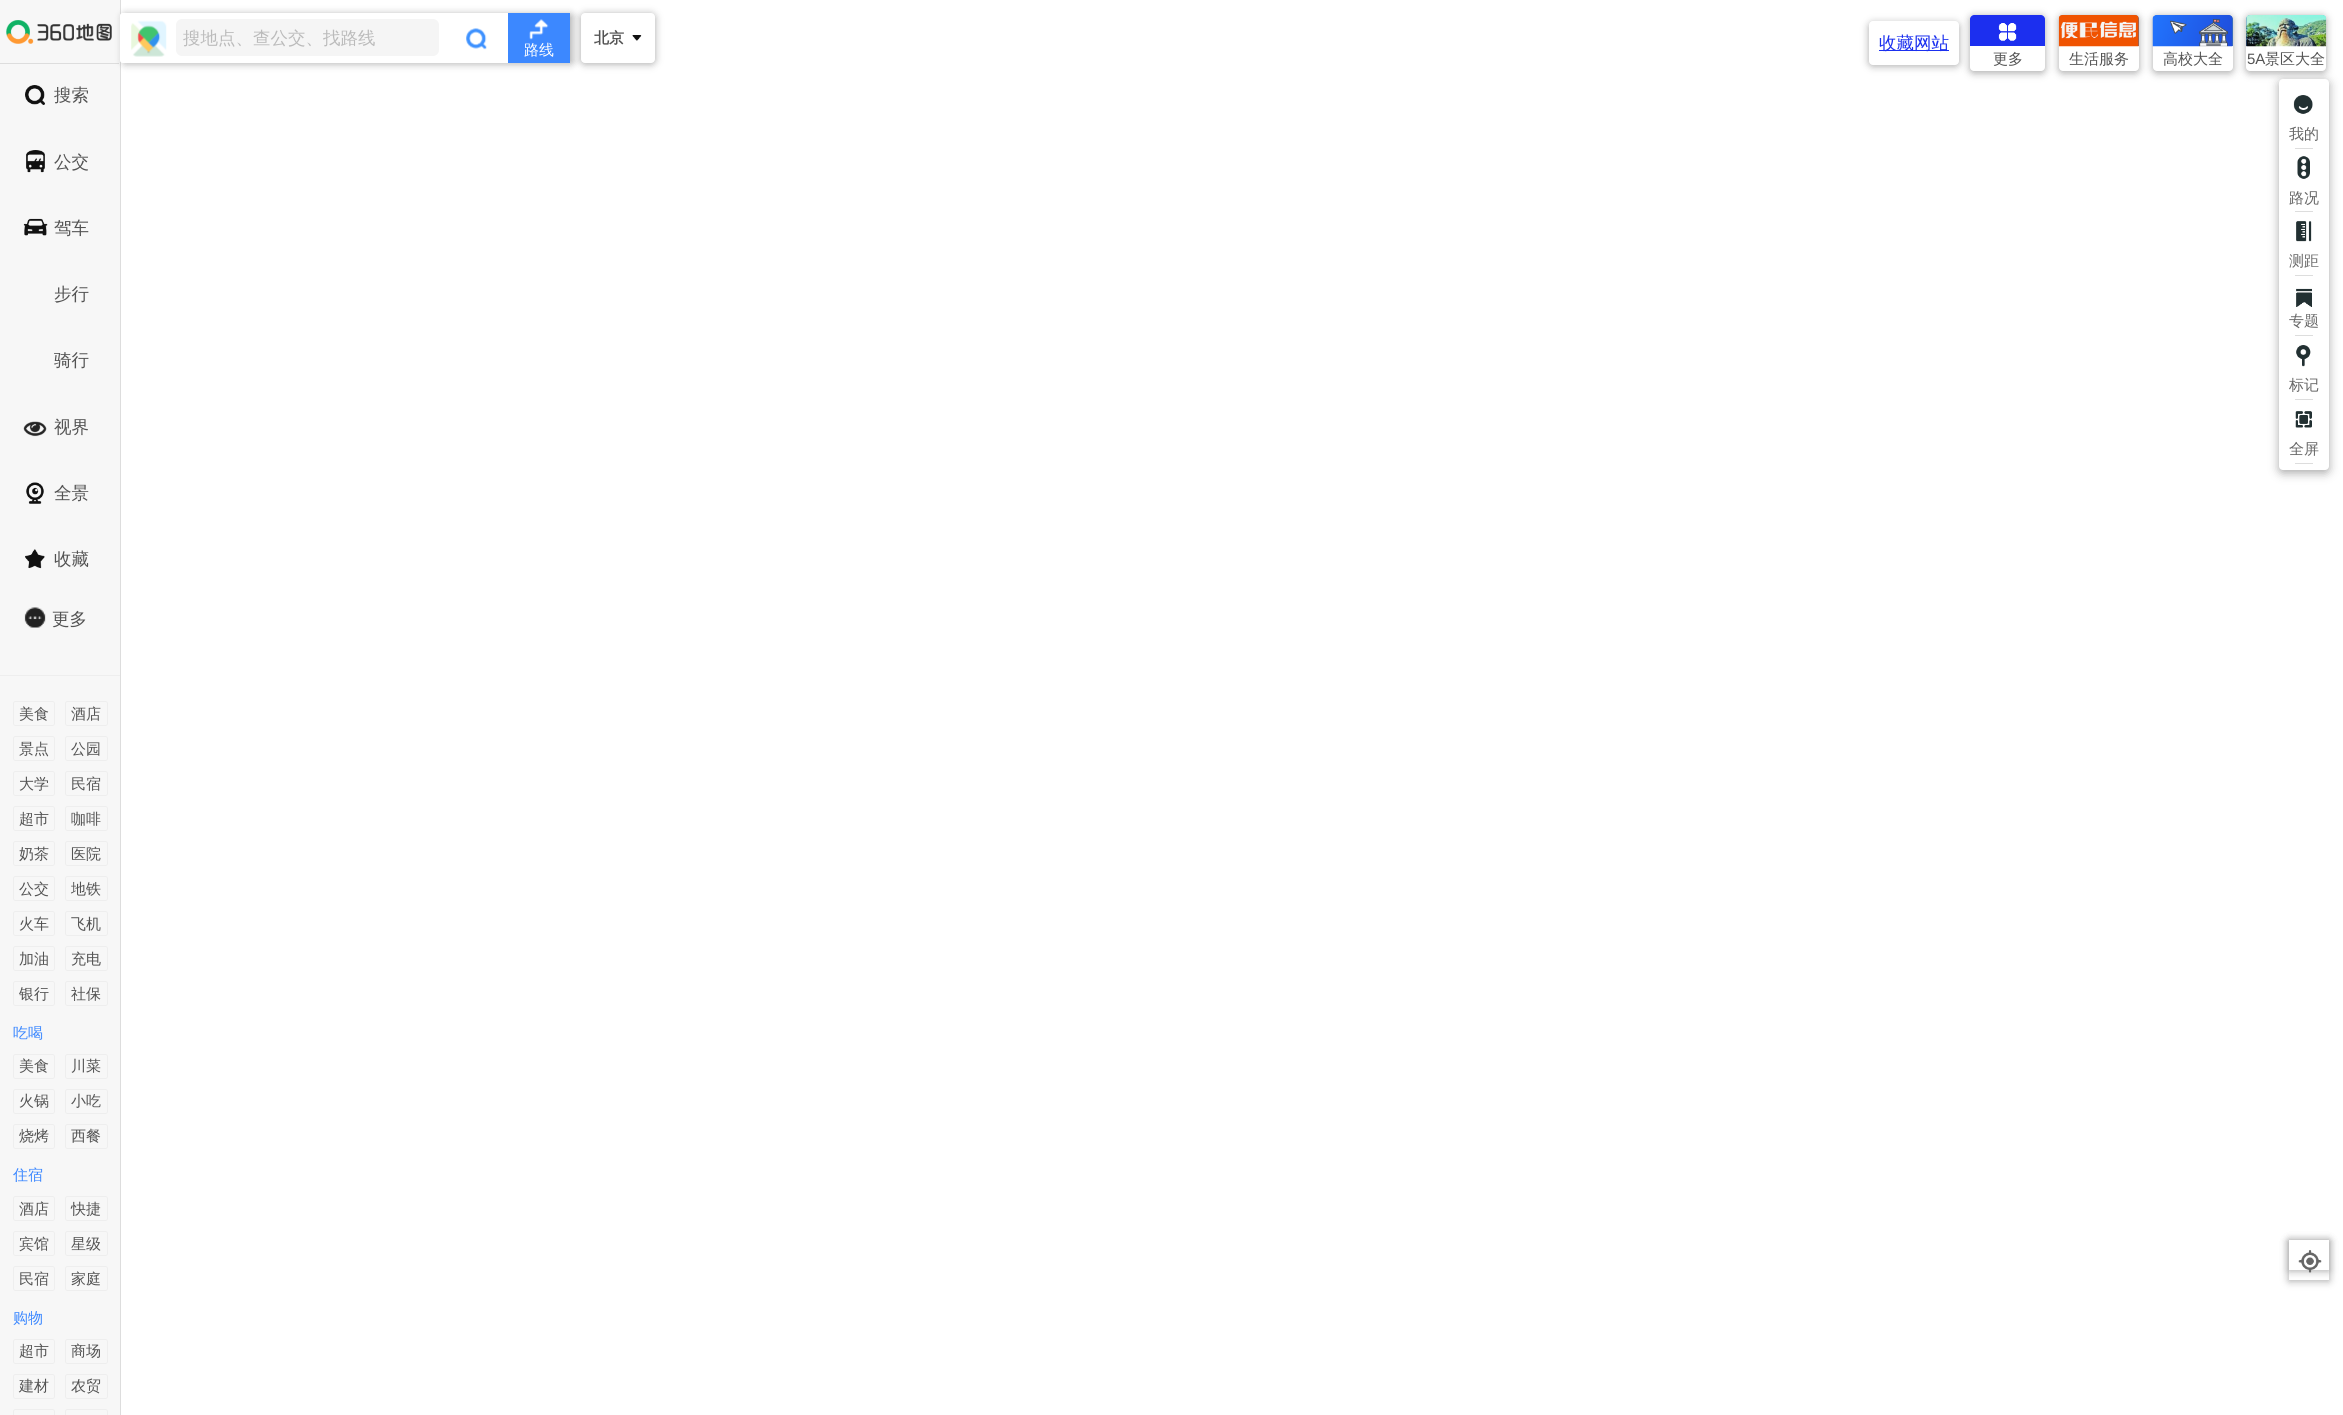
#include <cairo.h>
#include <math.h>
#include <stddef.h>


static void set_color(cairo_t *cr, unsigned color) {
    cairo_set_source_rgb(cr, (color >> 16) / 255.0, (color >> 8 & 255) / 255.0, (color & 255) / 255.0);
}

static void draw_text(cairo_t *cr, double x, double y, const char *s, const char *family, double size, int italic, int bold, unsigned color) {
    cairo_select_font_face(cr, family, italic ? CAIRO_FONT_SLANT_ITALIC : CAIRO_FONT_SLANT_NORMAL,
        bold ? CAIRO_FONT_WEIGHT_BOLD : CAIRO_FONT_WEIGHT_NORMAL);
    cairo_set_font_size(cr, size);
    set_color(cr, color);
    cairo_move_to(cr, x, y);
    cairo_show_text(cr, s);
}

static void fill_rect(cairo_t *cr, double x, double y, double w, double h, unsigned color) {
    set_color(cr, color);
    cairo_rectangle(cr, x, y, w, h);
    cairo_fill(cr);
}

static void rounded_rect(cairo_t *cr, double x, double y, double w, double h, double r) {
    cairo_new_sub_path(cr);
    cairo_arc(cr, x + w - r, y + h - r, r, 0, M_PI / 2);
    cairo_arc(cr, x + r, y + h - r, r, M_PI / 2, M_PI);
    cairo_arc(cr, x + r, y + r, r, M_PI, 1.5 * M_PI);
    cairo_arc(cr, x + w - r, y + r, r, 1.5 * M_PI, 2 * M_PI);
    cairo_close_path(cr);
}

static void draw_shadow(cairo_t *cr, double x, double y, double w, double h, double r, double blur, double alpha) {
    cairo_push_group_with_content(cr, CAIRO_CONTENT_ALPHA);
    cairo_set_operator(cr, CAIRO_OPERATOR_SOURCE);
    for (int i = 15; i >= -15 && fmin(w, h) + blur * i / 3 > 0; i -= 2) {
        double e = blur * i / 6;
        cairo_set_source_rgba(cr, 0, 0, 0, alpha * erfc((i - 1) / 8.5) / 2);
        rounded_rect(cr, x - e, y - e, w + 2 * e, h + 2 * e, fmax(0, fmin(r + e + blur * .6, fmin(w, h) / 2 + e)));
        cairo_fill(cr);
    }
    cairo_pattern_t *soft = cairo_pop_group(cr);
    cairo_mask(cr, soft);
    cairo_pattern_destroy(soft);
}

static void draw_image(cairo_t *cr, const char *path, double x, double y, double w, double h) {
    cairo_surface_t *image = cairo_image_surface_create_from_png(path);
    cairo_save(cr);
    cairo_set_source_surface(cr, image, x, y);
    cairo_rectangle(cr, x, y, w, h);
    cairo_fill(cr);
    cairo_restore(cr);
    cairo_surface_destroy(image);
}

int main(void) {
    cairo_surface_t *surface = cairo_image_surface_create(CAIRO_FORMAT_RGB24, 2343, 1415);
    cairo_t *cr = cairo_create(surface);
    cairo_font_options_t *options = cairo_font_options_create();
    cairo_font_options_set_hint_metrics(options, CAIRO_HINT_METRICS_OFF);
    cairo_font_options_set_hint_style(options, CAIRO_HINT_STYLE_NONE);
    cairo_set_font_options(cr, options);
    cairo_set_miter_limit(cr, 4);
    set_color(cr, 0xFFFFFF);
    cairo_paint(cr);
    fill_rect(cr, 0, 0, 120, 1415, 0xF7F7F7);
    fill_rect(cr, 120, 0, 1, 1415, 0xDDDDDD);
    draw_image(cr, "assets/img1.png", 6, 20, 106, 24);
    fill_rect(cr, 0, 63, 119, 1, 0xDDDDDD);
    fill_rect(cr, 0, 675, 120, 1, 0xEEEEEE);
    draw_image(cr, "assets/img2.png", 25, 85, 20, 20);
    draw_text(cr, 54, 101, "搜索", "WenQuanYi Zen Hei Medium", 17.5, 0, 0, 0x535353);
    draw_image(cr, "assets/img3.png", 26, 150, 19, 23);
    draw_text(cr, 54, 168, "公交", "WenQuanYi Zen Hei Medium", 17.5, 0, 0, 0x535353);
    draw_image(cr, "assets/img4.png", 23, 218, 25, 18);
    draw_text(cr, 54, 234, "驾车", "WenQuanYi Zen Hei Medium", 17.5, 0, 0, 0x535353);
    draw_text(cr, 54, 300, "步行", "WenQuanYi Zen Hei Medium", 17.5, 0, 0, 0x535353);
    draw_text(cr, 54, 366, "骑行", "WenQuanYi Zen Hei Medium", 17.5, 0, 0, 0x535353);
    draw_image(cr, "assets/img5.png", 23, 421, 24, 16);
    draw_text(cr, 54, 433, "视界", "WenQuanYi Zen Hei Medium", 17.5, 0, 0, 0x535353);
    draw_image(cr, "assets/img6.png", 26, 482, 18, 22);
    draw_text(cr, 54, 499, "全景", "WenQuanYi Zen Hei Medium", 17.5, 0, 0, 0x535353);
    draw_image(cr, "assets/img7.png", 25, 549, 20, 20);
    draw_text(cr, 54, 565, "收藏", "WenQuanYi Zen Hei Medium", 17.5, 0, 0, 0x535353);
    draw_image(cr, "assets/img8.png", 24, 607, 22, 21);
    draw_text(cr, 52, 625, "更多", "WenQuanYi Zen Hei Medium", 17.5, 0, 0, 0x535353);
    rounded_rect(cr, 13.5, 701.5, 41, 24, 2);
    set_color(cr, 0xEEEEEE);
    cairo_set_line_width(cr, 1);
    cairo_stroke(cr);
    draw_text(cr, 19, 719, "美食", "WenQuanYi Zen Hei Medium", 15, 0, 0, 0x535353);
    rounded_rect(cr, 65.5, 701.5, 42, 24, 2);
    set_color(cr, 0xEEEEEE);
    cairo_stroke(cr);
    draw_text(cr, 71, 719, "酒店", "WenQuanYi Zen Hei Medium", 15, 0, 0, 0x535353);
    rounded_rect(cr, 13.5, 736.5, 41, 24, 2);
    set_color(cr, 0xEEEEEE);
    cairo_stroke(cr);
    draw_text(cr, 19, 754, "景点", "WenQuanYi Zen Hei Medium", 15, 0, 0, 0x535353);
    rounded_rect(cr, 65.5, 736.5, 42, 24, 2);
    set_color(cr, 0xEEEEEE);
    cairo_stroke(cr);
    draw_text(cr, 71, 754, "公园", "WenQuanYi Zen Hei Medium", 15, 0, 0, 0x535353);
    rounded_rect(cr, 13.5, 771.5, 41, 24, 2);
    set_color(cr, 0xEEEEEE);
    cairo_stroke(cr);
    draw_text(cr, 19, 789, "大学", "WenQuanYi Zen Hei Medium", 15, 0, 0, 0x535353);
    rounded_rect(cr, 65.5, 771.5, 42, 24, 2);
    set_color(cr, 0xEEEEEE);
    cairo_stroke(cr);
    draw_text(cr, 71, 789, "民宿", "WenQuanYi Zen Hei Medium", 15, 0, 0, 0x535353);
    rounded_rect(cr, 13.5, 806.5, 41, 24, 2);
    set_color(cr, 0xEEEEEE);
    cairo_stroke(cr);
    draw_text(cr, 19, 824, "超市", "WenQuanYi Zen Hei Medium", 15, 0, 0, 0x535353);
    rounded_rect(cr, 65.5, 806.5, 42, 24, 2);
    set_color(cr, 0xEEEEEE);
    cairo_stroke(cr);
    draw_text(cr, 71, 824, "咖啡", "WenQuanYi Zen Hei Medium", 15, 0, 0, 0x535353);
    rounded_rect(cr, 13.5, 841.5, 41, 24, 2);
    set_color(cr, 0xEEEEEE);
    cairo_stroke(cr);
    draw_text(cr, 19, 859, "奶茶", "WenQuanYi Zen Hei Medium", 15, 0, 0, 0x535353);
    rounded_rect(cr, 65.5, 841.5, 42, 24, 2);
    set_color(cr, 0xEEEEEE);
    cairo_stroke(cr);
    draw_text(cr, 71, 859, "医院", "WenQuanYi Zen Hei Medium", 15, 0, 0, 0x535353);
    rounded_rect(cr, 13.5, 876.5, 41, 24, 2);
    set_color(cr, 0xEEEEEE);
    cairo_stroke(cr);
    draw_text(cr, 19, 894, "公交", "WenQuanYi Zen Hei Medium", 15, 0, 0, 0x535353);
    rounded_rect(cr, 65.5, 876.5, 42, 24, 2);
    set_color(cr, 0xEEEEEE);
    cairo_stroke(cr);
    draw_text(cr, 71, 894, "地铁", "WenQuanYi Zen Hei Medium", 15, 0, 0, 0x535353);
    rounded_rect(cr, 13.5, 911.5, 41, 24, 2);
    set_color(cr, 0xEEEEEE);
    cairo_stroke(cr);
    draw_text(cr, 19, 929, "火车", "WenQuanYi Zen Hei Medium", 15, 0, 0, 0x535353);
    rounded_rect(cr, 65.5, 911.5, 42, 24, 2);
    set_color(cr, 0xEEEEEE);
    cairo_stroke(cr);
    draw_text(cr, 71, 929, "飞机", "WenQuanYi Zen Hei Medium", 15, 0, 0, 0x535353);
    rounded_rect(cr, 13.5, 946.5, 41, 24, 2);
    set_color(cr, 0xEEEEEE);
    cairo_stroke(cr);
    draw_text(cr, 19, 964, "加油", "WenQuanYi Zen Hei Medium", 15, 0, 0, 0x535353);
    rounded_rect(cr, 65.5, 946.5, 42, 24, 2);
    set_color(cr, 0xEEEEEE);
    cairo_stroke(cr);
    draw_text(cr, 71, 964, "充电", "WenQuanYi Zen Hei Medium", 15, 0, 0, 0x535353);
    rounded_rect(cr, 13.5, 981.5, 41, 24, 2);
    set_color(cr, 0xEEEEEE);
    cairo_stroke(cr);
    draw_text(cr, 19, 999, "银行", "WenQuanYi Zen Hei Medium", 15, 0, 0, 0x535353);
    rounded_rect(cr, 65.5, 981.5, 42, 24, 2);
    set_color(cr, 0xEEEEEE);
    cairo_stroke(cr);
    draw_text(cr, 71, 999, "社保", "WenQuanYi Zen Hei Medium", 15, 0, 0, 0x535353);
    draw_text(cr, 13, 1038, "吃喝", "WenQuanYi Zen Hei Medium", 15, 0, 0, 0x3C88FF);
    rounded_rect(cr, 13.5, 1054.5, 41, 24, 2);
    set_color(cr, 0xEEEEEE);
    cairo_stroke(cr);
    draw_text(cr, 19, 1071, "美食", "WenQuanYi Zen Hei Medium", 15, 0, 0, 0x535353);
    rounded_rect(cr, 65.5, 1054.5, 42, 24, 2);
    set_color(cr, 0xEEEEEE);
    cairo_stroke(cr);
    draw_text(cr, 71, 1071, "川菜", "WenQuanYi Zen Hei Medium", 15, 0, 0, 0x535353);
    rounded_rect(cr, 13.5, 1089.5, 41, 24, 2);
    set_color(cr, 0xEEEEEE);
    cairo_stroke(cr);
    draw_text(cr, 19, 1106, "火锅", "WenQuanYi Zen Hei Medium", 15, 0, 0, 0x535353);
    rounded_rect(cr, 65.5, 1089.5, 42, 24, 2);
    set_color(cr, 0xEEEEEE);
    cairo_stroke(cr);
    draw_text(cr, 71, 1106, "小吃", "WenQuanYi Zen Hei Medium", 15, 0, 0, 0x535353);
    rounded_rect(cr, 13.5, 1124.5, 41, 24, 2);
    set_color(cr, 0xEEEEEE);
    cairo_stroke(cr);
    draw_text(cr, 19, 1141, "烧烤", "WenQuanYi Zen Hei Medium", 15, 0, 0, 0x535353);
    rounded_rect(cr, 65.5, 1124.5, 42, 24, 2);
    set_color(cr, 0xEEEEEE);
    cairo_stroke(cr);
    draw_text(cr, 71, 1141, "西餐", "WenQuanYi Zen Hei Medium", 15, 0, 0, 0x535353);
    draw_text(cr, 13, 1180, "住宿", "WenQuanYi Zen Hei Medium", 15, 0, 0, 0x3C88FF);
    rounded_rect(cr, 13.5, 1196.5, 41, 24, 2);
    set_color(cr, 0xEEEEEE);
    cairo_stroke(cr);
    draw_text(cr, 19, 1214, "酒店", "WenQuanYi Zen Hei Medium", 15, 0, 0, 0x535353);
    rounded_rect(cr, 65.5, 1196.5, 42, 24, 2);
    set_color(cr, 0xEEEEEE);
    cairo_stroke(cr);
    draw_text(cr, 71, 1214, "快捷", "WenQuanYi Zen Hei Medium", 15, 0, 0, 0x535353);
    rounded_rect(cr, 13.5, 1231.5, 41, 24, 2);
    set_color(cr, 0xEEEEEE);
    cairo_stroke(cr);
    draw_text(cr, 19, 1249, "宾馆", "WenQuanYi Zen Hei Medium", 15, 0, 0, 0x535353);
    rounded_rect(cr, 65.5, 1231.5, 42, 24, 2);
    set_color(cr, 0xEEEEEE);
    cairo_stroke(cr);
    draw_text(cr, 71, 1249, "星级", "WenQuanYi Zen Hei Medium", 15, 0, 0, 0x535353);
    rounded_rect(cr, 13.5, 1266.5, 41, 24, 2);
    set_color(cr, 0xEEEEEE);
    cairo_stroke(cr);
    draw_text(cr, 19, 1284, "民宿", "WenQuanYi Zen Hei Medium", 15, 0, 0, 0x535353);
    rounded_rect(cr, 65.5, 1266.5, 42, 24, 2);
    set_color(cr, 0xEEEEEE);
    cairo_stroke(cr);
    draw_text(cr, 71, 1284, "家庭", "WenQuanYi Zen Hei Medium", 15, 0, 0, 0x535353);
    draw_text(cr, 13, 1323, "购物", "WenQuanYi Zen Hei Medium", 15, 0, 0, 0x3C88FF);
    rounded_rect(cr, 13.5, 1339.5, 41, 24, 2);
    set_color(cr, 0xEEEEEE);
    cairo_stroke(cr);
    draw_text(cr, 19, 1356, "超市", "WenQuanYi Zen Hei Medium", 15, 0, 0, 0x535353);
    rounded_rect(cr, 65.5, 1339.5, 42, 24, 2);
    set_color(cr, 0xEEEEEE);
    cairo_stroke(cr);
    draw_text(cr, 71, 1356, "商场", "WenQuanYi Zen Hei Medium", 15, 0, 0, 0x535353);
    rounded_rect(cr, 13.5, 1374.5, 41, 24, 2);
    set_color(cr, 0xEEEEEE);
    cairo_stroke(cr);
    draw_text(cr, 19, 1391, "建材", "WenQuanYi Zen Hei Medium", 15, 0, 0, 0x535353);
    rounded_rect(cr, 65.5, 1374.5, 42, 24, 2);
    set_color(cr, 0xEEEEEE);
    cairo_stroke(cr);
    draw_text(cr, 71, 1391, "农贸", "WenQuanYi Zen Hei Medium", 15, 0, 0, 0x535353);
    rounded_rect(cr, 13.5, 1409.5, 41, 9, 2);
    set_color(cr, 0xEEEEEE);
    cairo_stroke(cr);
    rounded_rect(cr, 65.5, 1409.5, 42, 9, 2);
    cairo_stroke(cr);
    set_color(cr, 0xAAAAAA);
    draw_shadow(cr, 581, 14, 74, 50, 4, 4, 1);
    set_color(cr, 0xFFFFFF);
    rounded_rect(cr, 581, 13, 74, 50, 4);
    cairo_fill(cr);
    set_color(cr, 0x000000);
    draw_shadow(cr, 123, 14, 450, 50, 2.5, 4, 0.3);
    set_color(cr, 0xFFFFFF);
    rounded_rect(cr, 120, 13, 450, 50, 2.5);
    cairo_fill(cr);
    set_color(cr, 0xF5F5F5);
    rounded_rect(cr, 176, 19, 263, 37, 6);
    cairo_fill(cr);
    draw_text(cr, 183, 44, "搜地点、查公交、找路线", "WenQuanYi Zen Hei Medium", 17.5, 0, 0, 0xBBBBBB);
    draw_image(cr, "assets/img9.png", 131, 20, 36, 37);
    draw_image(cr, "assets/img10.png", 466, 28, 21, 22);
    fill_rect(cr, 508, 13, 62, 50, 0x3C88FF);
    draw_image(cr, "assets/img11.png", 529, 19, 20, 21);
    draw_text(cr, 524, 55, "路线", "WenQuanYi Zen Hei Medium", 15, 0, 0, 0xFFFFFF);
    draw_text(cr, 594, 43, "北京", "WenQuanYi Zen Hei", 15, 0, 1, 0x535353);
    draw_image(cr, "assets/img12.png", 632, 35, 10, 6);
    set_color(cr, 0xAAAAAA);
    draw_shadow(cr, 1869, 23, 90, 43, 4, 4, 1);
    set_color(cr, 0xFFFFFF);
    rounded_rect(cr, 1869, 21, 90, 44, 4);
    cairo_fill(cr);
    fill_rect(cr, 1879, 50, 70, 1, 0x1B30EF);
    draw_text(cr, 1879, 49, "收藏网站", "WenQuanYi Zen Hei Medium", 17.5, 0, 0, 0x1B30EF);
    set_color(cr, 0xAAAAAA);
    draw_shadow(cr, 1970, 16, 75, 57, 4, 4, 1);
    set_color(cr, 0xFFFFFF);
    rounded_rect(cr, 1970, 15, 75, 56, 4);
    cairo_fill(cr);
    set_color(cr, 0x1C2FEF);
    cairo_new_path(cr);
    cairo_move_to(cr, 1974, 15);
    cairo_line_to(cr, 2041, 15);
    cairo_curve_to(cr, 2043, 15, 2045, 17, 2045, 19);
    cairo_line_to(cr, 2045, 46);
    cairo_line_to(cr, 1970, 46);
    cairo_line_to(cr, 1970, 19);
    cairo_curve_to(cr, 1970, 17, 1972, 15, 1974, 15);
    cairo_close_path(cr);
    cairo_fill(cr);
    draw_image(cr, "assets/img13.png", 1998, 23, 19, 18);
    draw_text(cr, 1993, 64, "更多", "WenQuanYi Zen Hei Medium", 15, 0, 0, 0x535353);
    set_color(cr, 0xAAAAAA);
    draw_shadow(cr, 2059, 16, 80, 57, 4, 4, 1);
    set_color(cr, 0xFFFFFF);
    rounded_rect(cr, 2059, 15, 80, 56, 4);
    cairo_fill(cr);
    set_color(cr, 0x3F73B6);
    cairo_new_path(cr);
    cairo_move_to(cr, 2063, 15);
    cairo_line_to(cr, 2135, 15);
    cairo_curve_to(cr, 2137, 15, 2139, 17, 2139, 19);
    cairo_line_to(cr, 2139, 46);
    cairo_line_to(cr, 2059, 46);
    cairo_line_to(cr, 2059, 19);
    cairo_curve_to(cr, 2059, 17, 2061, 15, 2063, 15);
    cairo_close_path(cr);
    cairo_fill(cr);
    draw_image(cr, "assets/img14.png", 2058, 15, 81, 32);
    draw_text(cr, 2069, 64, "生活服务", "WenQuanYi Zen Hei Medium", 15, 0, 0, 0x535353);
    set_color(cr, 0xAAAAAA);
    draw_shadow(cr, 2153, 16, 80, 57, 4, 4, 1);
    set_color(cr, 0xFFFFFF);
    rounded_rect(cr, 2153, 15, 80, 56, 4);
    cairo_fill(cr);
    set_color(cr, 0x3F73B6);
    cairo_new_path(cr);
    cairo_move_to(cr, 2157, 15);
    cairo_line_to(cr, 2229, 15);
    cairo_curve_to(cr, 2231, 15, 2233, 17, 2233, 19);
    cairo_line_to(cr, 2233, 46);
    cairo_line_to(cr, 2153, 46);
    cairo_line_to(cr, 2153, 19);
    cairo_curve_to(cr, 2153, 17, 2155, 15, 2157, 15);
    cairo_close_path(cr);
    cairo_fill(cr);
    draw_image(cr, "assets/img15.png", 2152, 15, 81, 32);
    draw_text(cr, 2163, 64, "高校大全", "WenQuanYi Zen Hei Medium", 15, 0, 0, 0x535353);
    set_color(cr, 0xAAAAAA);
    draw_shadow(cr, 2246, 16, 80, 57, 4, 4, 1);
    set_color(cr, 0xFFFFFF);
    rounded_rect(cr, 2246, 15, 80, 56, 4);
    cairo_fill(cr);
    set_color(cr, 0x3F73B6);
    cairo_new_path(cr);
    cairo_move_to(cr, 2250, 15);
    cairo_line_to(cr, 2322, 15);
    cairo_curve_to(cr, 2324, 15, 2326, 17, 2326, 19);
    cairo_line_to(cr, 2326, 46);
    cairo_line_to(cr, 2246, 46);
    cairo_line_to(cr, 2246, 19);
    cairo_curve_to(cr, 2246, 17, 2248, 15, 2250, 15);
    cairo_close_path(cr);
    cairo_fill(cr);
    draw_image(cr, "assets/img16.png", 2246, 15, 81, 32);
    draw_text(cr, 2247, 64, "5A", "Liberation Sans", 15, 0, 0, 0x535353);
    draw_text(cr, 2265, 64, "景区大全", "WenQuanYi Zen Hei Medium", 15, 0, 0, 0x535353);
    set_color(cr, 0xAAAAAA);
    draw_shadow(cr, 2279, 81, 50, 392, 4, 5, 1);
    set_color(cr, 0xFFFFFF);
    rounded_rect(cr, 2279, 79, 50, 391, 4);
    cairo_fill(cr);
    draw_image(cr, "assets/img17.png", 2293, 95, 20, 19);
    draw_text(cr, 2289, 139, "我的", "WenQuanYi Zen Hei Medium", 15, 0, 0, 0x666666);
    fill_rect(cr, 2295, 148, 18, 1, 0xDDDDDD);
    draw_image(cr, "assets/img18.png", 2297, 156, 13, 23);
    draw_text(cr, 2289, 203, "路况", "WenQuanYi Zen Hei Medium", 15, 0, 0, 0x666666);
    fill_rect(cr, 2295, 211, 18, 1, 0xDDDDDD);
    draw_image(cr, "assets/img19.png", 2296, 221, 16, 21);
    draw_text(cr, 2289, 266, "测距", "WenQuanYi Zen Hei Medium", 15, 0, 0, 0x666666);
    fill_rect(cr, 2295, 275, 18, 1, 0xDDDDDD);
    draw_image(cr, "assets/img20.png", 2296, 288, 16, 19);
    draw_text(cr, 2289, 326, "专题", "WenQuanYi Zen Hei Medium", 15, 0, 0, 0x666666);
    fill_rect(cr, 2295, 335, 18, 1, 0xDDDDDD);
    draw_image(cr, "assets/img21.png", 2296, 345, 15, 22);
    draw_text(cr, 2289, 390, "标记", "WenQuanYi Zen Hei Medium", 15, 0, 0, 0x666666);
    fill_rect(cr, 2295, 399, 18, 1, 0xDDDDDD);
    draw_image(cr, "assets/img22.png", 2295, 411, 17, 17);
    draw_text(cr, 2289, 454, "全屏", "WenQuanYi Zen Hei Medium", 15, 0, 0, 0x666666);
    fill_rect(cr, 2295, 463, 18, 1, 0xDDDDDD);
    set_color(cr, 0xAAAAAA);
    draw_shadow(cr, 2289, 1241, 40, 40, 0, 4, 1);
    fill_rect(cr, 2289, 1270, 40, 10, 0xFFFFFF);
    set_color(cr, 0xAAAAAA);
    draw_shadow(cr, 2289, 1241, 40, 30, 0, 4, 1);
    fill_rect(cr, 2289, 1240, 40, 30, 0xFFFFFF);
    draw_image(cr, "assets/img23.png", 2298, 1250, 24, 23);
    cairo_surface_write_to_png(surface, "output.png");
    cairo_font_options_destroy(options);
    cairo_destroy(cr);
    cairo_surface_destroy(surface);
    return 0;
}
